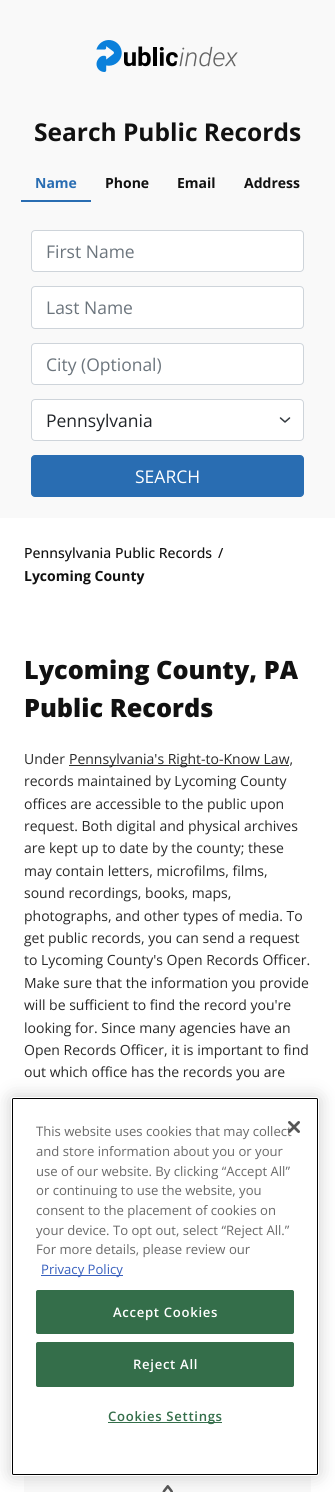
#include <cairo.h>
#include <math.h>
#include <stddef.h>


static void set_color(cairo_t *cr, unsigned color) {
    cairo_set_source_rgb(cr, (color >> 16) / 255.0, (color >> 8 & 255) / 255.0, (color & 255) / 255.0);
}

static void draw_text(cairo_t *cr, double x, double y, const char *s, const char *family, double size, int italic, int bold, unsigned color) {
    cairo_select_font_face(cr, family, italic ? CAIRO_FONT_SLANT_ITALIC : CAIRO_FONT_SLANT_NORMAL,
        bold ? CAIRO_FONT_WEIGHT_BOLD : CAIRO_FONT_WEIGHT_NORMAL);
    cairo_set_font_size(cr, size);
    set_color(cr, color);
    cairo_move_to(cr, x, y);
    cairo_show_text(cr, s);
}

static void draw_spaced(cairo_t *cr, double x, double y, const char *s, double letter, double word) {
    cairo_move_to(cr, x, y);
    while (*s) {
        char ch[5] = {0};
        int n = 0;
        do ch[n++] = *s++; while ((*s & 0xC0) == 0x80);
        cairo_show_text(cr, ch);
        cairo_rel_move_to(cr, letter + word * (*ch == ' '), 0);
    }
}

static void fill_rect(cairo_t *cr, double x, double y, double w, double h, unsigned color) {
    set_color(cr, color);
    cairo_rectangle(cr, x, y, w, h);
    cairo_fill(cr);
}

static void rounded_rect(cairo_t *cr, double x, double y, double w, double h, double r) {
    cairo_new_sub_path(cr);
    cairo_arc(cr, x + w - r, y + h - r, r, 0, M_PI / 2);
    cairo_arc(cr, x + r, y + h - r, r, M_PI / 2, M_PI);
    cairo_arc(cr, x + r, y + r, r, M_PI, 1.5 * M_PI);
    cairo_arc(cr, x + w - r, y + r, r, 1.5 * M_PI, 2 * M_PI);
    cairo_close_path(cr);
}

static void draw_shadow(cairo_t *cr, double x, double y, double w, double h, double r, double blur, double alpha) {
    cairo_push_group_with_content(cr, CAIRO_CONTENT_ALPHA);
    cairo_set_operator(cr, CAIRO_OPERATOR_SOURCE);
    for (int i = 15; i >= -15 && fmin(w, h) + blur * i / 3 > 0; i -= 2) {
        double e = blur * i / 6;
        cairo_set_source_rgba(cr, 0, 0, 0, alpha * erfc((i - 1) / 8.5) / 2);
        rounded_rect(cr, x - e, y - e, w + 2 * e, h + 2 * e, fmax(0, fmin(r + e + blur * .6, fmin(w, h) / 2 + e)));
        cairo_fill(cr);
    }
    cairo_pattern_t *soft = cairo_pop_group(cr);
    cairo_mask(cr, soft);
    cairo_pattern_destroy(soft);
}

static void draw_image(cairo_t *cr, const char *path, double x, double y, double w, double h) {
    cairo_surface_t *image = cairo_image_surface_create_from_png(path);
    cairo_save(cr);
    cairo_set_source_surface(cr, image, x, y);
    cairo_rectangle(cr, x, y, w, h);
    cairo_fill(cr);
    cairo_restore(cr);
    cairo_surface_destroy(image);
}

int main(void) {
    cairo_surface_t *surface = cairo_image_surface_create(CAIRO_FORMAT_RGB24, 335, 1492);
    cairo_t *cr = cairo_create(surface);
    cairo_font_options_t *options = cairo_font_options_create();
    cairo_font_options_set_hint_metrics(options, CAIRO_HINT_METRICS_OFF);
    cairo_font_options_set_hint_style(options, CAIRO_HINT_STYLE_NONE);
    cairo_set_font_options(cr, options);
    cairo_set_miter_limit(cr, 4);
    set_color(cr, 0xFFFFFF);
    cairo_paint(cr);
    fill_rect(cr, 0, 0, 335, 518, 0xF9F9F9);
    draw_image(cr, "assets/img1.png", 96, 40, 142, 32);
    draw_text(cr, 34, 141, "Search Public Records", "Open Sans", 24.5, 0, 1, 0x111111);
    fill_rect(cr, 21, 200, 70, 2, 0x296DB2);
    draw_text(cr, 35, 188, "Name", "Open Sans", 14, 0, 1, 0x296DB2);
    draw_text(cr, 105, 188, "Phone", "Open Sans", 14, 0, 1, 0x111111);
    draw_text(cr, 177, 188, "Email", "Open Sans", 14, 0, 1, 0x111111);
    draw_text(cr, 244, 188, "Address", "Open Sans", 14, 0, 1, 0x111111);
    set_color(cr, 0xFFFFFF);
    rounded_rect(cr, 31.5, 230.5, 272, 41, 3.5);
    cairo_fill_preserve(cr);
    set_color(cr, 0xCED4DA);
    cairo_set_line_width(cr, 1);
    cairo_stroke(cr);
    draw_text(cr, 46, 258, "First Name", "Open Sans", 17.5, 0, 0, 0x6C757D);
    set_color(cr, 0xFFFFFF);
    rounded_rect(cr, 31.5, 286.5, 272, 42, 3.5);
    cairo_fill_preserve(cr);
    set_color(cr, 0xCED4DA);
    cairo_stroke(cr);
    draw_text(cr, 46, 314, "Last Name", "Open Sans", 17.5, 0, 0, 0x6C757D);
    set_color(cr, 0xFFFFFF);
    rounded_rect(cr, 31.5, 343.5, 272, 41, 3.5);
    cairo_fill_preserve(cr);
    set_color(cr, 0xCED4DA);
    cairo_stroke(cr);
    draw_text(cr, 46, 371, "City (Optional)", "Open Sans", 17.5, 0, 0, 0x6C757D);
    set_color(cr, 0xFFFFFF);
    rounded_rect(cr, 31, 399, 273, 42, 4);
    cairo_fill(cr);
    cairo_new_path(cr);
    cairo_move_to(cr, 280.5, 418);
    cairo_line_to(cr, 285, 422);
    cairo_line_to(cr, 289.5, 418);
    set_color(cr, 0x343A40);
    cairo_set_line_width(cr, 1.5);
    cairo_set_line_cap(cr, CAIRO_LINE_CAP_ROUND);
    cairo_set_line_join(cr, CAIRO_LINE_JOIN_ROUND);
    cairo_stroke(cr);
    rounded_rect(cr, 31.5, 399.5, 272, 41, 3.5);
    set_color(cr, 0xCED4DA);
    cairo_set_line_width(cr, 1);
    cairo_set_line_cap(cr, CAIRO_LINE_CAP_BUTT);
    cairo_set_line_join(cr, CAIRO_LINE_JOIN_MITER);
    cairo_stroke(cr);
    draw_text(cr, 46, 427, "Pennsylvania", "Open Sans", 17.5, 0, 0, 0x212529);
    set_color(cr, 0x296DB2);
    rounded_rect(cr, 31.5, 455.5, 272, 41, 3.5);
    cairo_fill_preserve(cr);
    cairo_stroke(cr);
    draw_text(cr, 135, 483, "SEARCH", "Open Sans", 17.5, 0, 0, 0xFFFFFF);
    draw_text(cr, 24, 558, "Pennsylvania Public Records", "Open Sans Medium", 14, 0, 0, 0x111111);
    draw_text(cr, 218, 558, "/", "Open Sans Medium", 14, 0, 0, 0x111111);
    draw_text(cr, 24, 581, "Lycoming County", "Open Sans", 14, 0, 1, 0x111111);
    draw_text(cr, 24, 679, "Lycoming County, PA", "Open Sans ExtraBold", 25.25, 0, 0, 0x111111);
    draw_text(cr, 24, 717, "Public Records", "Open Sans ExtraBold", 25.25, 0, 0, 0x111111);
    draw_text(cr, 24, 764, "Under", "Open Sans", 14, 0, 0, 0x292929);
    fill_rect(cr, 69, 765, 220, 1, 0x292929);
    draw_text(cr, 69, 764, "Pennsylvania's Right-to-Know Law,", "Open Sans", 14, 0, 0, 0x292929);
    draw_text(cr, 24, 786, "records maintained by Lycoming County", "Open Sans", 14, 0, 0, 0x292929);
    draw_text(cr, 24, 809, "offices are accessible to the public upon", "Open Sans", 14, 0, 0, 0x292929);
    draw_text(cr, 24, 831, "request. Both digital and physical archives", "Open Sans", 14, 0, 0, 0x292929);
    draw_text(cr, 24, 853, "are kept up to date by the county; these", "Open Sans", 14, 0, 0, 0x292929);
    draw_text(cr, 24, 876, "may contain letters, microfilms, films,", "Open Sans", 14, 0, 0, 0x292929);
    draw_text(cr, 24, 898, "sound recordings, books, maps,", "Open Sans", 14, 0, 0, 0x292929);
    draw_text(cr, 24, 921, "photographs, and other types of media. To", "Open Sans", 14, 0, 0, 0x292929);
    draw_text(cr, 24, 943, "get public records, you can send a request", "Open Sans", 14, 0, 0, 0x292929);
    draw_text(cr, 24, 965, "to Lycoming County's Open Records Officer.", "Open Sans", 14, 0, 0, 0x292929);
    draw_text(cr, 24, 988, "Make sure that the information you provide", "Open Sans", 14, 0, 0, 0x292929);
    draw_text(cr, 24, 1010, "will be sufficient to find the record you're", "Open Sans", 14, 0, 0, 0x292929);
    draw_text(cr, 24, 1033, "looking for. Since many agencies have an", "Open Sans", 14, 0, 0, 0x292929);
    draw_text(cr, 24, 1055, "Open Records Officer, it is important to find", "Open Sans", 14, 0, 0, 0x292929);
    draw_text(cr, 24, 1077, "out which office has the records you are", "Open Sans", 14, 0, 0, 0x292929);
    fill_rect(cr, 24, 1476, 287, 16, 0xF9F9F9);
    draw_image(cr, "assets/img2.png", 162, 1485, 11, 7);
    set_color(cr, 0x000000);
    draw_shadow(cr, 11, 1097, 308, 379, 2.5, 9, 0.2);
    set_color(cr, 0xFFFFFF);
    rounded_rect(cr, 11, 1097, 308, 379, 2.5);
    cairo_fill(cr);
    rounded_rect(cr, 12.5, 1098.5, 305, 376, 1);
    set_color(cr, 0x000000);
    cairo_stroke(cr);
    draw_text(cr, 36, 1136, "This website uses cookies that may collect", "Open Sans", 13.1, 0, 0, 0x696969);
    draw_text(cr, 36, 1156, "and store information about you or your", "Open Sans", 13.1, 0, 0, 0x696969);
    draw_text(cr, 36, 1176, "use of our website. By clicking “Accept All”", "Open Sans", 13.1, 0, 0, 0x696969);
    draw_text(cr, 36, 1195, "or continuing to use the website, you", "Open Sans", 13.1, 0, 0, 0x696969);
    draw_text(cr, 36, 1215, "consent to the placement of cookies on", "Open Sans", 13.1, 0, 0, 0x696969);
    draw_text(cr, 36, 1235, "your device. To opt out, select “Reject All.”", "Open Sans", 13.1, 0, 0, 0x696969);
    draw_text(cr, 36, 1254, "For more details, please review our", "Open Sans", 13.1, 0, 0, 0x696969);
    fill_rect(cr, 41, 1275, 82, 1, 0x3860BE);
    draw_text(cr, 41, 1274, "Privacy Policy", "Open Sans", 13.1, 0, 0, 0x3860BE);
    draw_image(cr, "assets/img3.png", 288, 1121, 12, 12);
    set_color(cr, 0x346E4A);
    rounded_rect(cr, 36.5, 1290.5, 257, 43, 1.5);
    cairo_fill_preserve(cr);
    cairo_stroke(cr);
    cairo_select_font_face(cr, "Open Sans SemiBold", CAIRO_FONT_SLANT_NORMAL, CAIRO_FONT_WEIGHT_NORMAL);
    set_color(cr, 0xFFFFFF);
    draw_spaced(cr, 113, 1317, "Accept Cookies", 0.7, 0);
    set_color(cr, 0x346E4A);
    rounded_rect(cr, 36.5, 1342.5, 257, 44, 1.5);
    cairo_fill_preserve(cr);
    cairo_stroke(cr);
    set_color(cr, 0xFFFFFF);
    draw_spaced(cr, 133, 1369, "Reject All", 0.7, 0);
    fill_rect(cr, 108, 1422, 114, 1, 0x346E4A);
    draw_spaced(cr, 108, 1421, "Cookies Settings", 0.7, 0);
    cairo_surface_write_to_png(surface, "output.png");
    cairo_font_options_destroy(options);
    cairo_destroy(cr);
    cairo_surface_destroy(surface);
    return 0;
}
